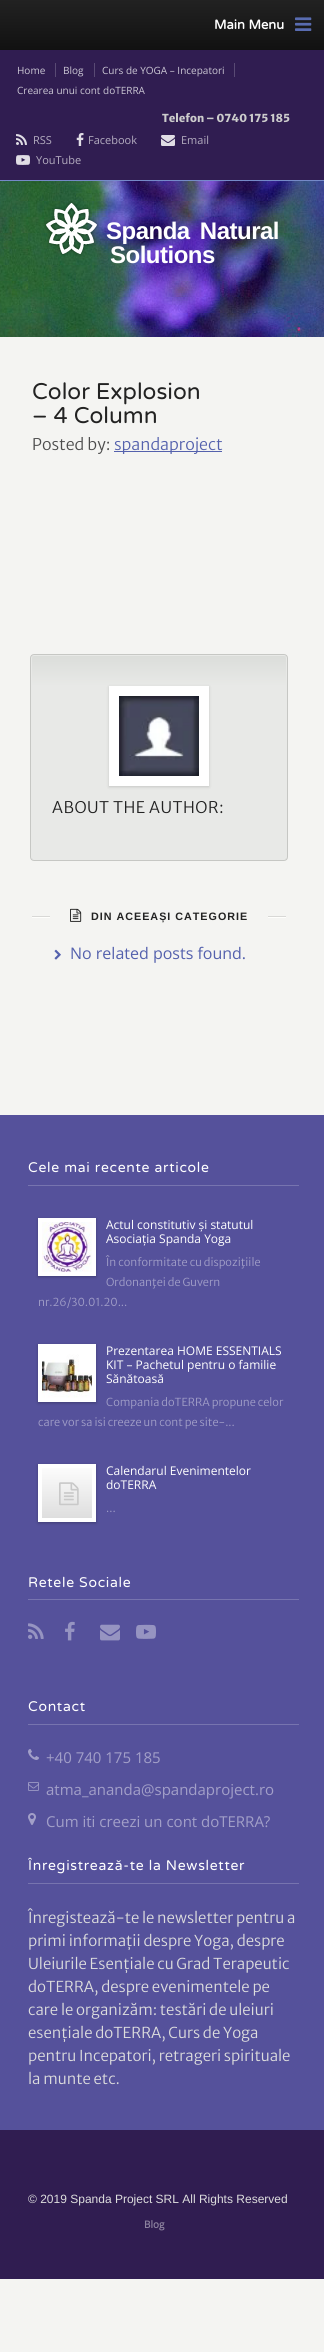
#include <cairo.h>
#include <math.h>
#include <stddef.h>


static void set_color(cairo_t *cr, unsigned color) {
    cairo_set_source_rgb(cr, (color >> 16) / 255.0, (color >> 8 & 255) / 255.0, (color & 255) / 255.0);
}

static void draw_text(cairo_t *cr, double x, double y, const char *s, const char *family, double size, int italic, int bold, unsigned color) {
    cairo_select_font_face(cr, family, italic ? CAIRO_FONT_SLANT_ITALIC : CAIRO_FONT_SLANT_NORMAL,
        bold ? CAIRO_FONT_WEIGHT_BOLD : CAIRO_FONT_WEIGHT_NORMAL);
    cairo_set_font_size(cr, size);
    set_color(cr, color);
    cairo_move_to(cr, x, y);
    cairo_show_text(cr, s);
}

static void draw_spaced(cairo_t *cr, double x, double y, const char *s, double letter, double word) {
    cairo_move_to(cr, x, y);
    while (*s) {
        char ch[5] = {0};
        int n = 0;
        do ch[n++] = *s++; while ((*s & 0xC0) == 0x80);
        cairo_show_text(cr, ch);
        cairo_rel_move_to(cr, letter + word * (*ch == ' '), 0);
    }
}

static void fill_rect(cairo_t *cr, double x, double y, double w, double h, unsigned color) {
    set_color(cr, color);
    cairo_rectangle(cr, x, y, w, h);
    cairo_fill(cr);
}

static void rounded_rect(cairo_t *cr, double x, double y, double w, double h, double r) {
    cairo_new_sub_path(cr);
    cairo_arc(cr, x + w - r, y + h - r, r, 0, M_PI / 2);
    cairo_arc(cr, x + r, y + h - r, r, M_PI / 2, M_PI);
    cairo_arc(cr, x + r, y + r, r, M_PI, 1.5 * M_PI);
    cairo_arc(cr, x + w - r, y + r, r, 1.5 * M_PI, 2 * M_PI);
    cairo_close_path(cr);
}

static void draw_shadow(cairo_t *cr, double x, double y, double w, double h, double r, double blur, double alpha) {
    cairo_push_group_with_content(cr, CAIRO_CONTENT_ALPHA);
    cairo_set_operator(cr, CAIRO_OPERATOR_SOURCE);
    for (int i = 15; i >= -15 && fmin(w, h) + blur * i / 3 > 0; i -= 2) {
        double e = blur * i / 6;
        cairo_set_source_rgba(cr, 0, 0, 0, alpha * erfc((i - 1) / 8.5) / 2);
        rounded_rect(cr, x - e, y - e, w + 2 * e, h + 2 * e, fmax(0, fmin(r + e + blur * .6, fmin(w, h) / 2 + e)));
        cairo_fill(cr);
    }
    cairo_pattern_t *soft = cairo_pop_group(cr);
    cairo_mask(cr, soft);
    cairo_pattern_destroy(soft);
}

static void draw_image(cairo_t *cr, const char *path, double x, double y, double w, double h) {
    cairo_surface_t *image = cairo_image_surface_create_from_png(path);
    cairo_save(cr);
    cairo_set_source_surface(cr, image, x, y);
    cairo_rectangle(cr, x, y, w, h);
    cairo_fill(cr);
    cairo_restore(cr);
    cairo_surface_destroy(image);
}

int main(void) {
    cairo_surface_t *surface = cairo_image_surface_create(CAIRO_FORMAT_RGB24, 324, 2352);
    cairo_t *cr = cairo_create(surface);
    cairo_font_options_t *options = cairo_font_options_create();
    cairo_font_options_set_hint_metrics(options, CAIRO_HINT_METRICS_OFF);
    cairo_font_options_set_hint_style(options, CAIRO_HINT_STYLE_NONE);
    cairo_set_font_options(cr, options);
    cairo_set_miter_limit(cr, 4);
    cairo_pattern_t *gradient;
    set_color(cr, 0xF4F4F2);
    cairo_paint(cr);
    gradient = cairo_pattern_create_linear(162, 0, 162, 50);
    cairo_pattern_add_color_stop_rgba(gradient, 0, 0.133, 0.133, 0.133, 1);
    cairo_pattern_add_color_stop_rgba(gradient, 1, 0.067, 0.067, 0.067, 1);
    cairo_set_source(cr, gradient);
    cairo_pattern_destroy(gradient);
    cairo_rectangle(cr, 0, 0, 324, 50);
    cairo_fill(cr);
    draw_text(cr, 214, 29, "Main Menu", "Varela Round", 13, 0, 1, 0xFFFFFF);
    draw_image(cr, "assets/img1.png", 295, 17, 17, 14);
    fill_rect(cr, 0, 50, 324, 130, 0x301D51);
    draw_text(cr, 17, 74, "Home", "Open Sans", 10, 0, 0, 0xCBC7D4);
    fill_rect(cr, 55, 63, 1, 14, 0x594A74);
    draw_text(cr, 63, 74, "Blog", "Open Sans", 10, 0, 0, 0xCBC7D4);
    fill_rect(cr, 94, 63, 1, 14, 0x594A74);
    draw_text(cr, 102, 74, "Curs de YOGA – Incepatori", "Open Sans", 10, 0, 0, 0xCBC7D4);
    fill_rect(cr, 234, 63, 1, 14, 0x594A74);
    draw_text(cr, 17, 94, "Crearea unui cont doTERRA", "Open Sans", 10, 0, 0, 0xCBC7D4);
    draw_text(cr, 162, 122, "Telefon – 0740 175 185", "Merriweather Sans ExtraBold", 11, 0, 0, 0xCCCCCC);
    draw_image(cr, "assets/img2.png", 16, 134, 11, 11);
    draw_text(cr, 33, 144, "RSS", "Open Sans", 11, 0, 0, 0xB4ADC0);
    draw_image(cr, "assets/img3.png", 76, 133, 8, 13);
    draw_text(cr, 88, 144, "Facebook", "Open Sans", 11, 0, 0, 0xB4ADC0);
    draw_image(cr, "assets/img4.png", 161, 135, 14, 11);
    draw_text(cr, 181, 144, "Email", "Open Sans", 11, 0, 0, 0xB4ADC0);
    draw_image(cr, "assets/img5.png", 16, 155, 14, 10);
    draw_text(cr, 36, 164, "YouTube", "Open Sans", 11, 0, 0, 0xB4ADC0);
    fill_rect(cr, 0, 180, 324, 1, 0x7589C8);
    draw_image(cr, "assets/img6.png", 0, 181, 324, 156);
    draw_image(cr, "assets/img7.png", 44, 201, 55, 55);
    cairo_select_font_face(cr, "Liberation Sans", CAIRO_FONT_SLANT_NORMAL, CAIRO_FONT_WEIGHT_BOLD);
    cairo_set_font_size(cr, 24);
    set_color(cr, 0xFFFFFF);
    draw_spaced(cr, 106, 239, "Spanda Natural", -0.5, 4);
    draw_spaced(cr, 110, 263, "Solutions", -0.5, 0);
    draw_text(cr, 32, 399, "Color Explosion", "Varela Round", 22.75, 0, 0, 0x222222);
    draw_text(cr, 32, 423, "– 4 Column", "Varela Round", 22.75, 0, 0, 0x222222);
    draw_text(cr, 32, 450, "Posted by:", "Merriweather Sans Light", 16, 0, 0, 0x4C4C4C);
    fill_rect(cr, 114, 451, 108, 1, 0x5461AD);
    draw_text(cr, 114, 450, "spandaproject", "Merriweather Sans Light", 16, 0, 0, 0x5461AD);
    rounded_rect(cr, 31, 655, 256, 205, 3);
    set_color(cr, 0xC6C7C4);
    cairo_stroke(cr);
    rounded_rect(cr, 31.5, 655.5, 255, 204, 2.5);
    set_color(cr, 0xE8E9E7);
    cairo_set_line_width(cr, 1);
    cairo_stroke(cr);
    gradient = cairo_pattern_create_linear(159, 656, 159, 859);
    cairo_pattern_add_color_stop_rgba(gradient, 0, 0.859, 0.867, 0.855, 1);
    cairo_pattern_add_color_stop_rgba(gradient, 0.15, 0.91, 0.914, 0.906, 1);
    cairo_set_source(cr, gradient);
    cairo_pattern_destroy(gradient);
    rounded_rect(cr, 32, 656, 254, 203, 2);
    cairo_fill(cr);
    set_color(cr, 0x000000);
    draw_shadow(cr, 109, 687, 100, 100, 0, 1.5, 0.15);
    fill_rect(cr, 109, 686, 100, 100, 0xFFFFFF);
    draw_image(cr, "assets/img8.png", 119, 696, 80, 80);
    set_color(cr, 0x222222);
    draw_spaced(cr, 52, 813, "ABOUT THE AUTHOR:", 0.5, 0);
    fill_rect(cr, 32, 916, 254, 1, 0xD8D8D6);
    fill_rect(cr, 32, 917, 254, 1, 0xFEFEFC);
    fill_rect(cr, 50, 916, 218, 2, 0xF4F4F2);
    draw_image(cr, "assets/img9.png", 70, 908, 12, 14);
    cairo_select_font_face(cr, "Liberation Sans", CAIRO_FONT_SLANT_NORMAL, CAIRO_FONT_WEIGHT_BOLD);
    cairo_set_font_size(cr, 10.75);
    set_color(cr, 0x222222);
    draw_spaced(cr, 91, 920, "DIN ACEEAȘI CATEGORIE", 1, 0);
    draw_image(cr, "assets/img10.png", 54, 949, 7, 11);
    draw_text(cr, 70, 959, "No related posts found.", "Open Sans", 16, 0, 0, 0x5461AD);
    fill_rect(cr, 0, 1115, 324, 1015, 0x55519B);
    fill_rect(cr, 28, 1185, 271, 1, 0x7774AF);
    cairo_select_font_face(cr, "Varela Round", CAIRO_FONT_SLANT_NORMAL, CAIRO_FONT_WEIGHT_NORMAL);
    cairo_set_font_size(cr, 14);
    set_color(cr, 0xFFFFFF);
    draw_spaced(cr, 28, 1172, "Cele mai recente articole", 0.7, 0);
    set_color(cr, 0x000000);
    draw_shadow(cr, 38, 1219, 58, 58, 0, 1.5, 0.25);
    cairo_rectangle(cr, 40, 1220, 54, 54);
    set_color(cr, 0xFFFFFF);
    cairo_set_line_width(cr, 4);
    cairo_stroke(cr);
    draw_image(cr, "assets/img11.png", 42, 1222, 50, 50);
    draw_text(cr, 106, 1229, "Actul constitutiv și statutul", "Open Sans", 12, 0, 0, 0xFFFFFF);
    draw_text(cr, 106, 1243, "Asociația Spanda Yoga", "Open Sans", 12, 0, 0, 0xFFFFFF);
    draw_text(cr, 106, 1266, "În conformitate cu dispoziţiile", "Merriweather Sans Light", 11, 0, 0, 0xA29FC8);
    draw_text(cr, 106, 1286, "Ordonanţei de Guvern", "Merriweather Sans Light", 11, 0, 0, 0xA29FC8);
    draw_text(cr, 38, 1306, "nr.26/30.01.20...", "Merriweather Sans Light", 11, 0, 0, 0xA29FC8);
    set_color(cr, 0x000000);
    draw_shadow(cr, 38, 1345, 58, 58, 0, 1.5, 0.25);
    cairo_rectangle(cr, 40, 1346, 54, 54);
    set_color(cr, 0xFFFFFF);
    cairo_stroke(cr);
    draw_image(cr, "assets/img12.png", 42, 1348, 50, 50);
    draw_text(cr, 106, 1355, "Prezentarea HOME ESSENTIALS", "Open Sans", 12, 0, 0, 0xFFFFFF);
    draw_text(cr, 106, 1369, "KIT – Pachetul pentru o familie", "Open Sans", 12, 0, 0, 0xFFFFFF);
    draw_text(cr, 106, 1383, "Sănătoasă", "Open Sans", 12, 0, 0, 0xFFFFFF);
    draw_text(cr, 106, 1406, "Compania doTERRA propune celor", "Merriweather Sans Light", 11, 0, 0, 0xA29FC8);
    draw_text(cr, 38, 1426, "care vor sa isi creeze un cont pe site-...", "Merriweather Sans Light", 11, 0, 0, 0xA29FC8);
    set_color(cr, 0x000000);
    draw_shadow(cr, 38, 1465, 58, 58, 0, 1.5, 0.25);
    gradient = cairo_pattern_create_linear(67, 1468, 67, 1518);
    cairo_pattern_add_color_stop_rgba(gradient, 0, 0.988, 0.988, 0.988, 1);
    cairo_pattern_add_color_stop_rgba(gradient, 1, 0.871, 0.871, 0.871, 1);
    cairo_set_source(cr, gradient);
    cairo_pattern_destroy(gradient);
    cairo_rectangle(cr, 42, 1468, 50, 50);
    cairo_fill(cr);
    cairo_rectangle(cr, 40, 1466, 54, 54);
    set_color(cr, 0xFFFFFF);
    cairo_stroke(cr);
    draw_image(cr, "assets/img13.png", 59, 1482, 20, 24);
    draw_text(cr, 106, 1475, "Calendarul Evenimentelor", "Open Sans", 12, 0, 0, 0xFFFFFF);
    draw_text(cr, 106, 1489, "doTERRA", "Open Sans", 12, 0, 0, 0xFFFFFF);
    draw_text(cr, 106, 1512, "...", "Merriweather Sans Light", 11, 0, 0, 0xA29FC8);
    fill_rect(cr, 28, 1599, 271, 1, 0x7774AF);
    cairo_select_font_face(cr, "Varela Round", CAIRO_FONT_SLANT_NORMAL, CAIRO_FONT_WEIGHT_NORMAL);
    cairo_set_font_size(cr, 14);
    set_color(cr, 0xFFFFFF);
    draw_spaced(cr, 28, 1587, "Retele Sociale", 0.7, 0);
    draw_image(cr, "assets/img14.png", 28, 1623, 16, 16);
    draw_image(cr, "assets/img15.png", 65, 1621, 10, 20);
    draw_image(cr, "assets/img16.png", 100, 1624, 20, 17);
    draw_image(cr, "assets/img17.png", 136, 1624, 20, 15);
    fill_rect(cr, 28, 1724, 271, 1, 0x7774AF);
    set_color(cr, 0xFFFFFF);
    draw_spaced(cr, 28, 1711, "Contact", 0.7, 0);
    draw_image(cr, "assets/img18.png", 28, 1749, 11, 11);
    draw_text(cr, 46, 1763, "+40 740 175 185", "Open Sans", 15, 0, 0, 0xA29FC8);
    draw_image(cr, "assets/img19.png", 28, 1782, 11, 9);
    draw_text(cr, 46, 1795, "atma_ananda@spandaproject.ro", "Open Sans", 15, 0, 0, 0xA29FC8);
    draw_image(cr, "assets/img20.png", 28, 1813, 8, 12);
    draw_text(cr, 46, 1827, "Cum iti creezi un cont doTERRA?", "Open Sans", 15, 0, 0, 0xA29FC8);
    fill_rect(cr, 28, 1883, 271, 1, 0x7774AF);
    cairo_select_font_face(cr, "Varela Round", CAIRO_FONT_SLANT_NORMAL, CAIRO_FONT_WEIGHT_NORMAL);
    cairo_set_font_size(cr, 14);
    set_color(cr, 0xFFFFFF);
    draw_spaced(cr, 28, 1870, "Înregistrează-te la Newsletter", 0.7, 0);
    draw_text(cr, 28, 1923, "Înregistează-te le newsletter pentru a", "Merriweather Sans Light", 15, 0, 0, 0xDDDDDD);
    draw_text(cr, 28, 1946, "primi informații despre Yoga, despre", "Merriweather Sans Light", 15, 0, 0, 0xDDDDDD);
    draw_text(cr, 28, 1969, "Uleiurile Esențiale cu Grad Terapeutic", "Merriweather Sans Light", 15, 0, 0, 0xDDDDDD);
    draw_text(cr, 28, 1992, "doTERRA, despre evenimentele pe", "Merriweather Sans Light", 15, 0, 0, 0xDDDDDD);
    draw_text(cr, 28, 2015, "care le organizăm: testări de uleiuri", "Merriweather Sans Light", 15, 0, 0, 0xDDDDDD);
    draw_text(cr, 28, 2038, "esențiale doTERRA, Curs de Yoga", "Merriweather Sans Light", 15, 0, 0, 0xDDDDDD);
    draw_text(cr, 28, 2061, "pentru Incepatori, retrageri spirituale", "Merriweather Sans Light", 15, 0, 0, 0xDDDDDD);
    draw_text(cr, 28, 2084, "la munte etc.", "Merriweather Sans Light", 15, 0, 0, 0xDDDDDD);
    fill_rect(cr, 0, 2130, 324, 149, 0x301D51);
    draw_text(cr, 28, 2203, "© 2019 Spanda Project SRL All Rights Reserved", "Liberation Sans", 12, 0, 0, 0xDDDDDD);
    draw_text(cr, 144, 2228, "Blog", "Open Sans", 10, 0, 1, 0x8D839F);
    cairo_surface_write_to_png(surface, "output.png");
    cairo_font_options_destroy(options);
    cairo_destroy(cr);
    cairo_surface_destroy(surface);
    return 0;
}
